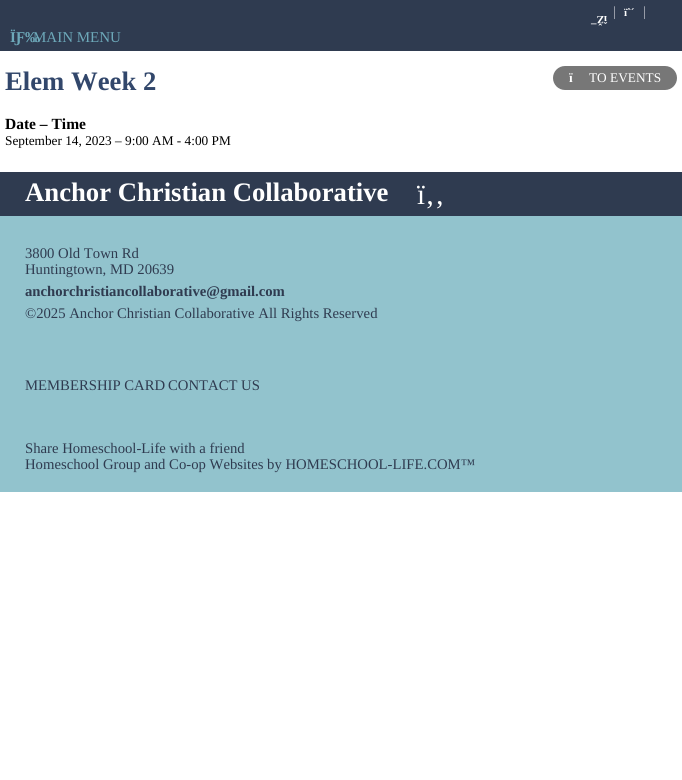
#include <cairo.h>
#include <math.h>
#include <stddef.h>


static void set_color(cairo_t *cr, unsigned color) {
    cairo_set_source_rgb(cr, (color >> 16) / 255.0, (color >> 8 & 255) / 255.0, (color & 255) / 255.0);
}

static void draw_text(cairo_t *cr, double x, double y, const char *s, const char *family, double size, int italic, int bold, unsigned color) {
    cairo_select_font_face(cr, family, italic ? CAIRO_FONT_SLANT_ITALIC : CAIRO_FONT_SLANT_NORMAL,
        bold ? CAIRO_FONT_WEIGHT_BOLD : CAIRO_FONT_WEIGHT_NORMAL);
    cairo_set_font_size(cr, size);
    set_color(cr, color);
    cairo_move_to(cr, x, y);
    cairo_show_text(cr, s);
}

static void fill_rect(cairo_t *cr, double x, double y, double w, double h, unsigned color) {
    set_color(cr, color);
    cairo_rectangle(cr, x, y, w, h);
    cairo_fill(cr);
}

static void rounded_rect(cairo_t *cr, double x, double y, double w, double h, double r) {
    cairo_new_sub_path(cr);
    cairo_arc(cr, x + w - r, y + h - r, r, 0, M_PI / 2);
    cairo_arc(cr, x + r, y + h - r, r, M_PI / 2, M_PI);
    cairo_arc(cr, x + r, y + r, r, M_PI, 1.5 * M_PI);
    cairo_arc(cr, x + w - r, y + r, r, 1.5 * M_PI, 2 * M_PI);
    cairo_close_path(cr);
}

int main(void) {
    cairo_surface_t *surface = cairo_image_surface_create(CAIRO_FORMAT_RGB24, 682, 780);
    cairo_t *cr = cairo_create(surface);
    cairo_font_options_t *options = cairo_font_options_create();
    cairo_font_options_set_hint_metrics(options, CAIRO_HINT_METRICS_OFF);
    cairo_font_options_set_hint_style(options, CAIRO_HINT_STYLE_NONE);
    cairo_set_font_options(cr, options);
    cairo_set_miter_limit(cr, 4);
    set_color(cr, 0xFFFFFF);
    cairo_paint(cr);
    fill_rect(cr, 0, 0, 682, 51, 0x2F3B50);
    draw_text(cr, 613, 16, "|", "Liberation Serif", 14, 0, 0, 0xC1C4CB);
    draw_text(cr, 624, 16, "ïˆ´", "Liberation Serif", 11, 0, 1, 0xFFFFFF);
    draw_text(cr, 643, 16, "|", "Liberation Serif", 14, 0, 0, 0xC1C4CB);
    cairo_save(cr);
    cairo_translate(cr, 607, 16);
    cairo_rotate(cr, 180 * M_PI / 180);
    draw_text(cr, 0, 0, "îŽ¯", "Liberation Serif", 11, 0, 1, 0xFFFFFF);
    cairo_restore(cr);
    draw_text(cr, 10, 42, "ÏƑ‰", "Liberation Serif", 15, 0, 1, 0x6DA9BA);
    draw_text(cr, 33, 42, "MAIN MENU", "Liberation Serif", 15, 0, 0, 0x6DA9BA);
    draw_text(cr, 5, 90, "Elem Week 2", "Liberation Serif", 26.7, 0, 1, 0x32476B);
    set_color(cr, 0x777777);
    rounded_rect(cr, 553, 66, 124, 24, 12);
    cairo_fill(cr);
    draw_text(cr, 569, 82, "ï", "Liberation Serif", 13.3, 0, 1, 0xFFFFFF);
    draw_text(cr, 589, 82, "TO EVENTS", "Liberation Serif", 13.3, 0, 0, 0xFFFFFF);
    draw_text(cr, 5, 129, "Date – Time", "Liberation Serif", 15.5, 0, 1, 0x000000);
    draw_text(cr, 5, 145, "September 14, 2023 – 9:00 AM - 4:00 PM", "Liberation Serif", 13.3, 0, 0, 0x000000);
    fill_rect(cr, 0, 216, 682, 276, 0x92C3CD);
    fill_rect(cr, 0, 172, 682, 44, 0x2F3B50);
    draw_text(cr, 25, 201, "Anchor Christian Collaborative", "Liberation Serif", 26.7, 0, 1, 0xFFFFFF);
    draw_text(cr, 417, 204, "ï‚‚", "Liberation Serif", 29, 0, 0, 0xFFFFFF);
    draw_text(cr, 25, 258, "3800 Old Town Rd", "Liberation Serif", 14.7, 0, 0, 0x2F3B50);
    draw_text(cr, 25, 274, "Huntingtown, MD 20639", "Liberation Serif", 14.7, 0, 0, 0x2F3B50);
    draw_text(cr, 25, 296, "anchorchristiancollaborative@gmail.com", "Liberation Serif", 14.7, 0, 1, 0x2F3B50);
    draw_text(cr, 25, 318, "©2025 Anchor Christian Collaborative All Rights Reserved", "Liberation Serif", 14.7, 0, 0, 0x2F3B50);
    draw_text(cr, 25, 390, "MEMBERSHIP CARD", "Liberation Serif", 14.7, 0, 0, 0x2F3B50);
    draw_text(cr, 168, 390, "CONTACT US", "Liberation Serif", 14.7, 0, 0, 0x2F3B50);
    draw_text(cr, 25, 453, "Share Homeschool-Life with a friend", "Liberation Serif", 14.7, 0, 0, 0x2F3B50);
    draw_text(cr, 25, 469, "Homeschool Group and Co-op Websites by HOMESCHOOL-LIFE.COM™", "Liberation Serif", 14.7, 0, 0, 0x2F3B50);
    cairo_surface_write_to_png(surface, "output.png");
    cairo_font_options_destroy(options);
    cairo_destroy(cr);
    cairo_surface_destroy(surface);
    return 0;
}
